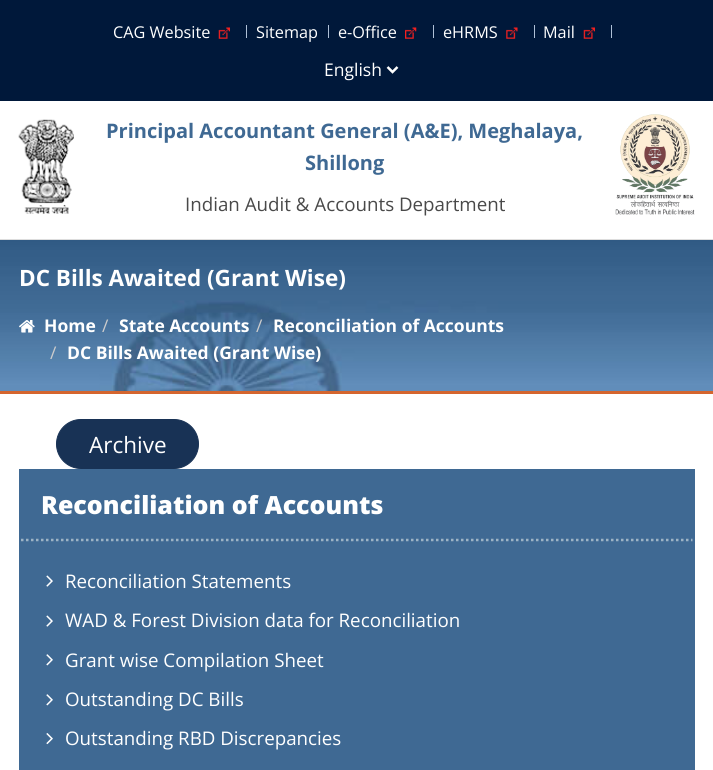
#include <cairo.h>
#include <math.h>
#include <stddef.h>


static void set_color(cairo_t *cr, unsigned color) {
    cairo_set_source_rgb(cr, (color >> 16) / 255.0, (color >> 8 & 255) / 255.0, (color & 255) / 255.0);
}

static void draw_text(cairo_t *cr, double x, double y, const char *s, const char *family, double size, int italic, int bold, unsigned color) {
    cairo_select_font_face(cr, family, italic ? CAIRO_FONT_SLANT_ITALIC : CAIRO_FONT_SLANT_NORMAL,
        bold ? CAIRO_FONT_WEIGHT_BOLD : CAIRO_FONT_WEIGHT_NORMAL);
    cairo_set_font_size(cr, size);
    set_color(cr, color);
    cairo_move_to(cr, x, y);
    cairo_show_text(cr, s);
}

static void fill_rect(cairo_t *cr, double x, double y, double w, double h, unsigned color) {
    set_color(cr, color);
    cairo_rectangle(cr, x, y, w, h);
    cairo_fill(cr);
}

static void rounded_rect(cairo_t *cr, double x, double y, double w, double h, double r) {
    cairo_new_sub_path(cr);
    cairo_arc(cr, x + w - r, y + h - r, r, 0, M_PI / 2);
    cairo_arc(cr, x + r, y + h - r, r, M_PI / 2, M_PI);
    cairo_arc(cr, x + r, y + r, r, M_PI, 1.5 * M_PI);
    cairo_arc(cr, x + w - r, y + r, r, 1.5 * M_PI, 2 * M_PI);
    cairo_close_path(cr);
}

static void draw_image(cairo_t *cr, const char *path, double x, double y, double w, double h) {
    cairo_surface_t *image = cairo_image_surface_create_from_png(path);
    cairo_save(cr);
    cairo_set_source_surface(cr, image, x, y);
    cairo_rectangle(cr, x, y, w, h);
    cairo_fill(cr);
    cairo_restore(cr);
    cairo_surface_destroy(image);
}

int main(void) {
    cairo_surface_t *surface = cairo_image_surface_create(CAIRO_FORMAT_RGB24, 713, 770);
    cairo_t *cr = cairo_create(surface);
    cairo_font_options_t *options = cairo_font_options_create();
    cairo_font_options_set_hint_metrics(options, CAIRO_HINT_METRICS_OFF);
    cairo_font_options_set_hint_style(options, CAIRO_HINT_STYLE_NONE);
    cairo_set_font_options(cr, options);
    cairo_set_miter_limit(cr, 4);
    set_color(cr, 0xFFFFFF);
    cairo_paint(cr);
    fill_rect(cr, 0, 0, 713, 101, 0x00183A);
    draw_text(cr, 113, 38, "CAG Website", "Open Sans", 16.25, 0, 0, 0xFFFFFF);
    draw_image(cr, "assets/img1.png", 218, 27, 12, 12);
    fill_rect(cr, 246, 25, 1, 13, 0xAFC0D7);
    draw_text(cr, 256, 38, "Sitemap", "Open Sans", 16.25, 0, 0, 0xFFFFFF);
    fill_rect(cr, 328, 25, 1, 13, 0xAFC0D7);
    draw_text(cr, 338, 38, "e-Office", "Open Sans", 16.25, 0, 0, 0xFFFFFF);
    draw_image(cr, "assets/img2.png", 405, 27, 12, 12);
    fill_rect(cr, 433, 25, 1, 13, 0xAFC0D7);
    draw_text(cr, 443, 38, "eHRMS", "Open Sans", 16.25, 0, 0, 0xFFFFFF);
    draw_image(cr, "assets/img3.png", 506, 27, 12, 12);
    fill_rect(cr, 534, 25, 1, 13, 0xAFC0D7);
    draw_text(cr, 543, 38, "Mail", "Open Sans", 16.25, 0, 0, 0xFFFFFF);
    draw_image(cr, "assets/img4.png", 583, 27, 12, 12);
    fill_rect(cr, 611, 25, 1, 13, 0xAFC0D7);
    cairo_new_path(cr);
    cairo_move_to(cr, 387.5, 67);
    cairo_line_to(cr, 392.5, 72);
    cairo_line_to(cr, 397.5, 67);
    set_color(cr, 0xFFFFFF);
    cairo_set_line_width(cr, 2.5);
    cairo_stroke(cr);
    draw_text(cr, 324, 76, "English", "Open Sans", 17.5, 0, 0, 0xFFFFFF);
    fill_rect(cr, 0, 239, 713, 1, 0xDDDDDD);
    draw_image(cr, "assets/img5.png", 18, 119, 56, 95);
    draw_text(cr, 106, 138, "Principal Accountant General (A&E), Meghalaya,", "Open Sans", 20, 0, 1, 0x3F6993);
    draw_text(cr, 305, 170, "Shillong", "Open Sans", 20, 0, 1, 0x3F6993);
    draw_text(cr, 185, 211, "Indian Audit & Accounts Department", "Open Sans", 18.75, 0, 0, 0x494949);
    draw_image(cr, "assets/img6.png", 615, 114, 80, 101);
    draw_image(cr, "assets/img7.png", 0, 240, 713, 151);
    fill_rect(cr, 0, 391, 713, 3, 0xD4652E);
    draw_text(cr, 19, 286, "DC Bills Awaited (Grant Wise)", "Open Sans", 22.5, 0, 1, 0xFFFFFF);
    draw_image(cr, "assets/img8.png", 19, 320, 16, 13);
    draw_text(cr, 44, 332, "Home", "Open Sans", 17.5, 0, 1, 0xFFFFFF);
    draw_text(cr, 102, 332, "/", "Open Sans", 17.5, 0, 0, 0xCCCCCC);
    draw_text(cr, 119, 332, "State Accounts", "Open Sans", 17.5, 0, 1, 0xFFFFFF);
    draw_text(cr, 256, 332, "/", "Open Sans", 17.5, 0, 0, 0xCCCCCC);
    draw_text(cr, 273, 332, "Reconciliation of Accounts", "Open Sans", 17.5, 0, 1, 0xFFFFFF);
    draw_text(cr, 50, 359, "/", "Open Sans", 17.5, 0, 0, 0xCCCCCC);
    draw_text(cr, 67, 359, "DC Bills Awaited (Grant Wise)", "Open Sans", 17.5, 0, 1, 0xFFFFFF);
    set_color(cr, 0x183255);
    rounded_rect(cr, 56.5, 419.5, 142, 49, 24.5);
    cairo_fill_preserve(cr);
    cairo_set_line_width(cr, 1);
    cairo_stroke(cr);
    draw_text(cr, 89, 453, "Archive", "Open Sans", 22.5, 0, 0, 0xFFFFFF);
    fill_rect(cr, 19, 469, 676, 301, 0x3F6993);
    cairo_new_path(cr);
    cairo_move_to(cr, 21, 540);
    cairo_line_to(cr, 692.5, 540);
    set_color(cr, 0x9DB3C5);
    cairo_set_line_width(cr, 2.5);
    cairo_set_dash(cr, (double[]){2.5, 2.5}, 2, 0);
    cairo_stroke(cr);
    draw_text(cr, 41, 514, "Reconciliation of Accounts", "Open Sans ExtraBold", 25, 0, 0, 0xFFFFFF);
    draw_image(cr, "assets/img9.png", 46, 575, 7, 12);
    draw_text(cr, 65, 588, "Reconciliation Statements", "Open Sans", 18.75, 0, 0, 0xFFFFFF);
    draw_image(cr, "assets/img9.png", 46, 615, 7, 12);
    draw_text(cr, 65, 627, "WAD & Forest Division data for Reconciliation", "Open Sans", 18.75, 0, 0, 0xFFFFFF);
    draw_image(cr, "assets/img10.png", 46, 654, 7, 12);
    draw_text(cr, 65, 667, "Grant wise Compilation Sheet", "Open Sans", 18.75, 0, 0, 0xFFFFFF);
    draw_image(cr, "assets/img10.png", 46, 694, 7, 12);
    draw_text(cr, 65, 706, "Outstanding DC Bills", "Open Sans", 18.75, 0, 0, 0xFFFFFF);
    draw_image(cr, "assets/img11.png", 46, 733, 7, 12);
    draw_text(cr, 65, 745, "Outstanding RBD Discrepancies", "Open Sans", 18.75, 0, 0, 0xFFFFFF);
    cairo_surface_write_to_png(surface, "output.png");
    cairo_font_options_destroy(options);
    cairo_destroy(cr);
    cairo_surface_destroy(surface);
    return 0;
}
